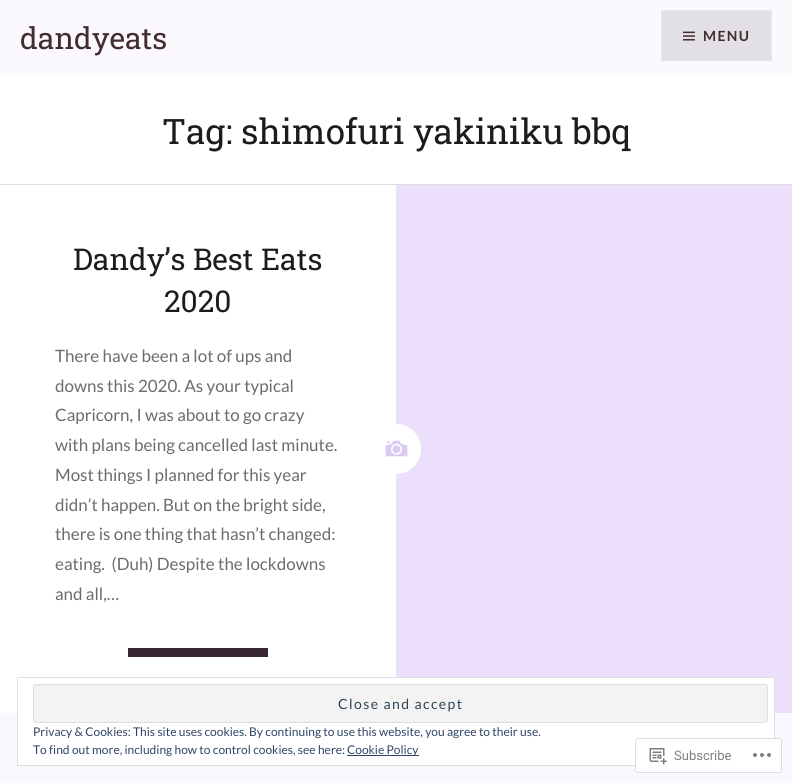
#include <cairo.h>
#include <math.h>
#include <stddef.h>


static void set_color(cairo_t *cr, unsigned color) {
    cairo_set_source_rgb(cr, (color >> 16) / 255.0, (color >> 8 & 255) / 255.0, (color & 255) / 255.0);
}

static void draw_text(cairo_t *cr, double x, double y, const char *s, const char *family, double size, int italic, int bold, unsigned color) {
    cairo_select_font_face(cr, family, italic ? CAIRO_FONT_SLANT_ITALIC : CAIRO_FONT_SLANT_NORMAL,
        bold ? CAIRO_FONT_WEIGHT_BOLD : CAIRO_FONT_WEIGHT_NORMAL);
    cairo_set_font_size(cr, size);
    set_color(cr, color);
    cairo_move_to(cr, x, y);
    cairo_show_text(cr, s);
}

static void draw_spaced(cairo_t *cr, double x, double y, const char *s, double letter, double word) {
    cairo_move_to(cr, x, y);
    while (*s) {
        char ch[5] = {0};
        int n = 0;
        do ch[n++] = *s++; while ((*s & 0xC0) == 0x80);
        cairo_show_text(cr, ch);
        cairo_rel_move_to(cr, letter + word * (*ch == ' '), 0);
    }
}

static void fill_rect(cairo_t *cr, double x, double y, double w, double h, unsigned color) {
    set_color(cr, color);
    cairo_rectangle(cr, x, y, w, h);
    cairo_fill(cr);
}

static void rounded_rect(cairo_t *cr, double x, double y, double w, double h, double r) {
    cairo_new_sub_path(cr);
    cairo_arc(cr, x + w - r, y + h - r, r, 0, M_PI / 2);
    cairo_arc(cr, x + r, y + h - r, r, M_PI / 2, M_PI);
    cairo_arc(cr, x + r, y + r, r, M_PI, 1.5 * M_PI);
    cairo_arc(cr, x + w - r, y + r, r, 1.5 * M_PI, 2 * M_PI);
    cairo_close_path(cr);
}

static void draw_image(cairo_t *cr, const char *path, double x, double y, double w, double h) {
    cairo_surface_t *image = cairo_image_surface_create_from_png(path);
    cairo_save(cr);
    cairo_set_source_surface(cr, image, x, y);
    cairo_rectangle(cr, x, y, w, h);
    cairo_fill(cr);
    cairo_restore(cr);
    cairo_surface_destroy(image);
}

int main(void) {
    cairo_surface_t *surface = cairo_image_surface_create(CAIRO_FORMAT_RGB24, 792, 783);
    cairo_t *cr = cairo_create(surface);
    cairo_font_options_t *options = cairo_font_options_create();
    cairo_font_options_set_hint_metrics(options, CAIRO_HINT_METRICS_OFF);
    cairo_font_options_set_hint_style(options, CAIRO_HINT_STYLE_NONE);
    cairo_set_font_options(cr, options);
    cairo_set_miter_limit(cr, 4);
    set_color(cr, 0xFFFFFF);
    cairo_paint(cr);
    fill_rect(cr, 0, 0, 792, 76, 0xFBF9FE);
    draw_text(cr, 20, 49, "dandyeats", "Roboto Slab", 30, 0, 0, 0x432C2F);
    set_color(cr, 0xE2E0E5);
    cairo_rectangle(cr, 661.5, 10.5, 110, 50);
    cairo_fill_preserve(cr);
    set_color(cr, 0xE8E6EA);
    cairo_set_line_width(cr, 1);
    cairo_stroke(cr);
    draw_image(cr, "assets/img1.png", 683, 31, 12, 10);
    cairo_select_font_face(cr, "Lato", CAIRO_FONT_SLANT_NORMAL, CAIRO_FONT_WEIGHT_BOLD);
    cairo_set_font_size(cr, 14);
    set_color(cr, 0x432C2F);
    draw_spaced(cr, 703, 41, "MENU", 1.4, 0);
    fill_rect(cr, 0, 184, 792, 1, 0xD9DFE5);
    draw_text(cr, 162, 144, "Tag: shimofuri yakiniku bbq", "Roboto Slab", 35, 0, 0, 0x1A1C1E);
    draw_text(cr, 73, 270, "Dandy’s Best Eats", "Roboto Slab", 30, 0, 0, 0x1A1C1E);
    draw_text(cr, 164, 312, "2020", "Roboto Slab", 30, 0, 0, 0x1A1C1E);
    draw_text(cr, 55, 362, "There have been a lot of ups and", "Lato", 17, 0, 0, 0x6A6C6E);
    draw_text(cr, 55, 392, "downs this 2020. As your typical", "Lato", 17, 0, 0, 0x6A6C6E);
    draw_text(cr, 55, 421, "Capricorn, I was about to go crazy", "Lato", 17, 0, 0, 0x6A6C6E);
    draw_text(cr, 55, 451, "with plans being cancelled last minute.", "Lato", 17, 0, 0, 0x6A6C6E);
    draw_text(cr, 55, 481, "Most things I planned for this year", "Lato", 17, 0, 0, 0x6A6C6E);
    draw_text(cr, 55, 511, "didn’t happen. But on the bright side,", "Lato", 17, 0, 0, 0x6A6C6E);
    draw_text(cr, 55, 540, "there is one thing that hasn’t changed:", "Lato", 17, 0, 0, 0x6A6C6E);
    draw_text(cr, 55, 570, "eating.  (Duh) Despite the lockdowns", "Lato", 17, 0, 0, 0x6A6C6E);
    draw_text(cr, 55, 600, "and all,…", "Lato", 17, 0, 0, 0x6A6C6E);
    fill_rect(cr, 128, 648, 140, 9, 0x392733);
    fill_rect(cr, 396, 185, 396, 528, 0xEBDFFB);
    set_color(cr, 0xFFFFFF);
    cairo_new_path(cr);
    cairo_arc(cr, 396, 449, 25, 0, 2 * M_PI);
    cairo_fill(cr);
    draw_image(cr, "assets/img2.png", 385, 440, 23, 17);
    fill_rect(cr, 0, 713, 792, 70, 0xFAF7FE);
    set_color(cr, 0xFFFFFF);
    cairo_rectangle(cr, 17.5, 677.5, 757, 88);
    cairo_fill_preserve(cr);
    set_color(cr, 0xDEDEDE);
    cairo_stroke(cr);
    set_color(cr, 0xF3F3F3);
    rounded_rect(cr, 33.5, 684.5, 734, 38, 2.5);
    cairo_fill_preserve(cr);
    set_color(cr, 0xDEDEDE);
    cairo_stroke(cr);
    cairo_set_font_size(cr, 14);
    set_color(cr, 0x2E4453);
    draw_spaced(cr, 338, 709, "Close and accept", 1.4, 0);
    draw_text(cr, 33, 736, "Privacy & Cookies: This site uses cookies. By continuing to use this website, you agree to their use.", "Lato", 12, 0, 0, 0x2E4467);
    draw_text(cr, 33, 754, "To find out more, including how to control cookies, see here:", "Lato", 12, 0, 0, 0x2E4467);
    fill_rect(cr, 347, 755, 72, 1, 0x2E4467);
    draw_text(cr, 347, 754, "Cookie Policy", "Lato", 12, 0, 0, 0x2E4467);
    cairo_set_source_rgba(cr, 1, 1, 1, 0.98);
    rounded_rect(cr, 635, 738, 147, 35, 3);
    cairo_fill(cr);
    rounded_rect(cr, 635.5, 738.5, 146, 34, 2.5);
    cairo_set_source_rgba(cr, 0.863, 0.863, 0.871, 0.98);
    cairo_stroke(cr);
    draw_image(cr, "assets/img3.png", 649, 748, 18, 17);
    draw_text(cr, 674, 760, "Subscribe", "Roboto", 13, 0, 0, 0x7B7F85);
    draw_image(cr, "assets/img4.png", 753, 753, 18, 4);
    cairo_surface_write_to_png(surface, "output.png");
    cairo_font_options_destroy(options);
    cairo_destroy(cr);
    cairo_surface_destroy(surface);
    return 0;
}
